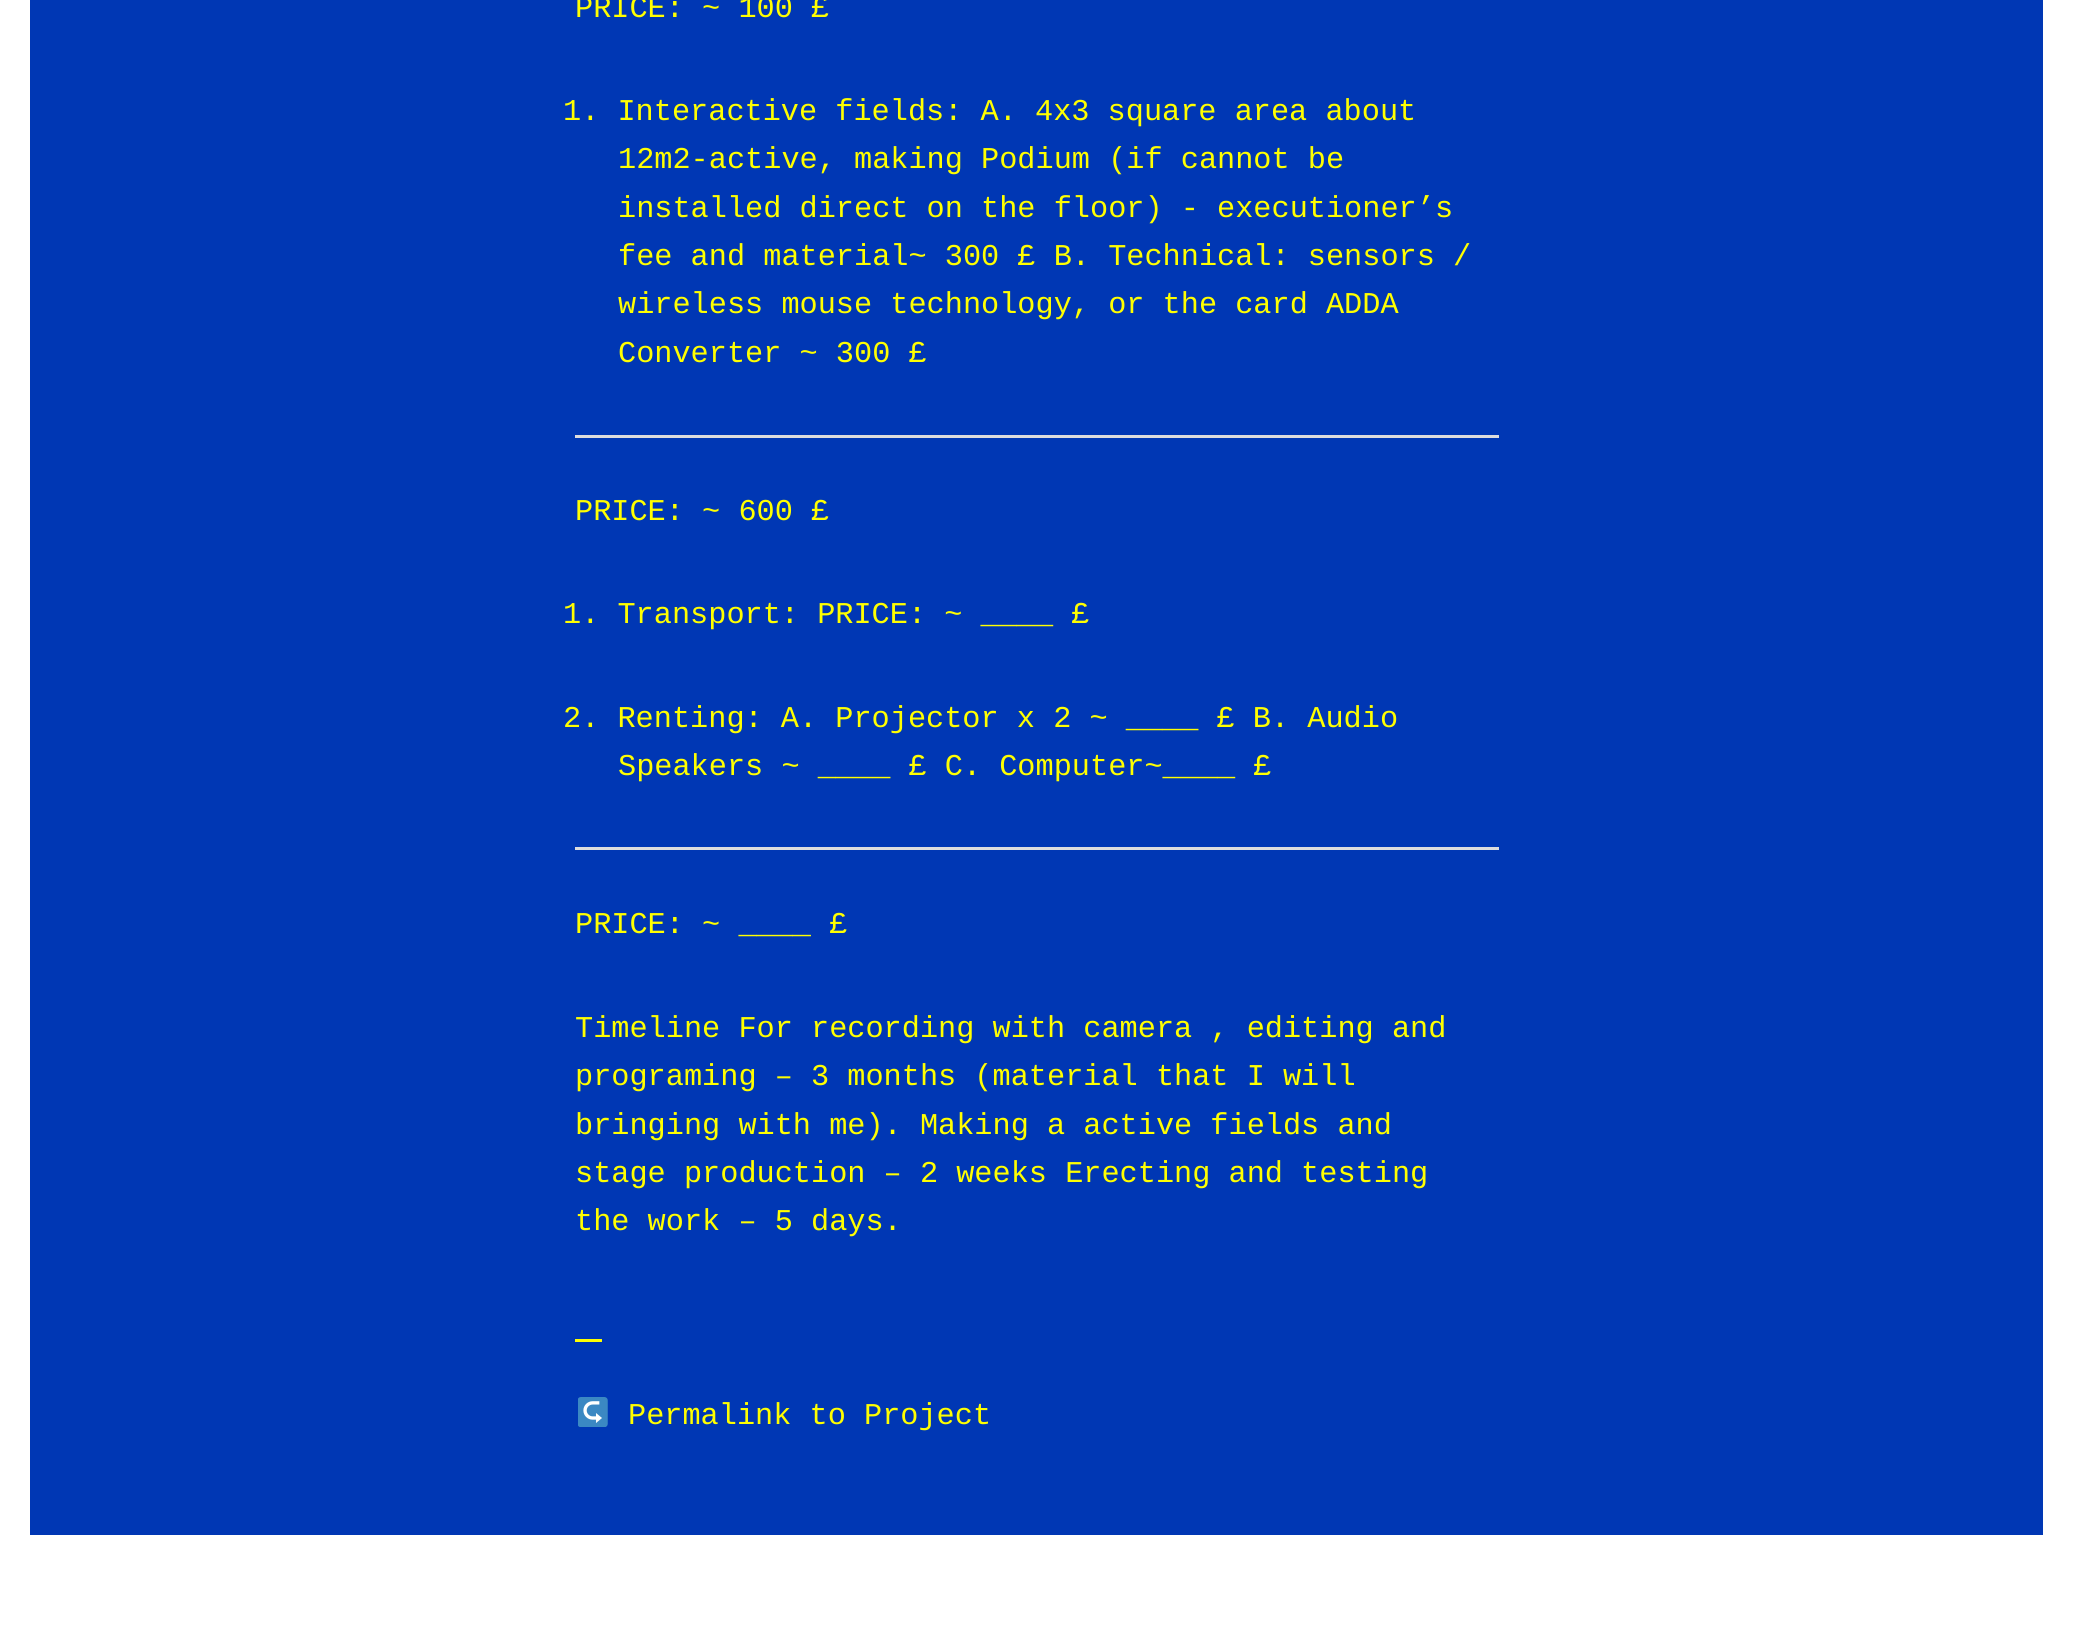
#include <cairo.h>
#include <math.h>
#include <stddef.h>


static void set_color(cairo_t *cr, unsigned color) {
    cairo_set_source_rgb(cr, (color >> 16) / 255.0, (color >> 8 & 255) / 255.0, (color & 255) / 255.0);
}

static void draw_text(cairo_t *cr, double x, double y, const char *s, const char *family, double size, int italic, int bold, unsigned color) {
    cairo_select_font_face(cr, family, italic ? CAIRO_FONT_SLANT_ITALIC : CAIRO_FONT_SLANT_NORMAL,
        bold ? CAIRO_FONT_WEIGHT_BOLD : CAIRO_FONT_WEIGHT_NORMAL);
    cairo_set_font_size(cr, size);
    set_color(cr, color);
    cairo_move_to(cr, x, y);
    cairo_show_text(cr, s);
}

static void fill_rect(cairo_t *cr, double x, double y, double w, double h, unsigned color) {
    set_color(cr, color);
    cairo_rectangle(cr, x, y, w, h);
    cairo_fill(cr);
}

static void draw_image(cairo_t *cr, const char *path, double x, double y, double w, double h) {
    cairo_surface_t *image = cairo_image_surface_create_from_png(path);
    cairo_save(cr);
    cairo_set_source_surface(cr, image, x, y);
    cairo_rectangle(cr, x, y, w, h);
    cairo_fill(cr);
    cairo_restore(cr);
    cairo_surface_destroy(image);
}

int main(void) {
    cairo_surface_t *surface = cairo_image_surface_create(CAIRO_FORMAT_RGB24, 2073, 1625);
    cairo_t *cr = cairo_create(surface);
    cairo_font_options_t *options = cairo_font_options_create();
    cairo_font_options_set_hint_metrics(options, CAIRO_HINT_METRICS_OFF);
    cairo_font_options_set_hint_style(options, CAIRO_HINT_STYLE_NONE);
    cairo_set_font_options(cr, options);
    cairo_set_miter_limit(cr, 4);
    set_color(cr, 0xFFFFFF);
    cairo_paint(cr);
    fill_rect(cr, 30, 0, 2013, 1535, 0x0037B4);
    draw_text(cr, 575, 17, "PRICE: ~ 100 £", "Liberation Mono", 30.25, 0, 0, 0xFFFF00);
    draw_text(cr, 563, 120, "1. Interactive fields: A. 4x3 square area about", "Liberation Mono", 30.25, 0, 0, 0xFFFF00);
    draw_text(cr, 618, 168, "12m2-active, making Podium (if cannot be", "Liberation Mono", 30.25, 0, 0, 0xFFFF00);
    draw_text(cr, 618, 217, "installed direct on the floor) - executioner’s", "Liberation Mono", 30.25, 0, 0, 0xFFFF00);
    draw_text(cr, 618, 265, "fee and material~ 300 £ B. Technical: sensors /", "Liberation Mono", 30.25, 0, 0, 0xFFFF00);
    draw_text(cr, 618, 313, "wireless mouse technology, or the card ADDA", "Liberation Mono", 30.25, 0, 0, 0xFFFF00);
    draw_text(cr, 618, 362, "Converter ~ 300 £", "Liberation Mono", 30.25, 0, 0, 0xFFFF00);
    fill_rect(cr, 575, 435, 924, 3, 0xDDDDDD);
    draw_text(cr, 575, 520, "PRICE: ~ 600 £", "Liberation Mono", 30.25, 0, 0, 0xFFFF00);
    draw_text(cr, 563, 623, "1. Transport: PRICE: ~ ____ £", "Liberation Mono", 30.25, 0, 0, 0xFFFF00);
    draw_text(cr, 563, 727, "2. Renting: A. Projector x 2 ~ ____ £ B. Audio", "Liberation Mono", 30.25, 0, 0, 0xFFFF00);
    draw_text(cr, 618, 775, "Speakers ~ ____ £ C. Computer~____ £", "Liberation Mono", 30.25, 0, 0, 0xFFFF00);
    fill_rect(cr, 575, 847, 924, 3, 0xDDDDDD);
    draw_text(cr, 575, 933, "PRICE: ~ ____ £", "Liberation Mono", 30.25, 0, 0, 0xFFFF00);
    draw_text(cr, 575, 1037, "Timeline For recording with camera , editing and", "Liberation Mono", 30.25, 0, 0, 0xFFFF00);
    draw_text(cr, 575, 1085, "programing – 3 months (material that I will", "Liberation Mono", 30.25, 0, 0, 0xFFFF00);
    draw_text(cr, 575, 1134, "bringing with me). Making a active fields and", "Liberation Mono", 30.25, 0, 0, 0xFFFF00);
    draw_text(cr, 575, 1182, "stage production – 2 weeks Erecting and testing", "Liberation Mono", 30.25, 0, 0, 0xFFFF00);
    draw_text(cr, 575, 1230, "the work – 5 days.", "Liberation Mono", 30.25, 0, 0, 0xFFFF00);
    fill_rect(cr, 575, 1339, 27, 3, 0xFFFF00);
    draw_image(cr, "assets/img1.png", 578, 1397, 30, 30);
    draw_text(cr, 628, 1424, "Permalink to Project", "Liberation Mono", 30.25, 0, 0, 0xFFFF00);
    cairo_surface_write_to_png(surface, "output.png");
    cairo_font_options_destroy(options);
    cairo_destroy(cr);
    cairo_surface_destroy(surface);
    return 0;
}
